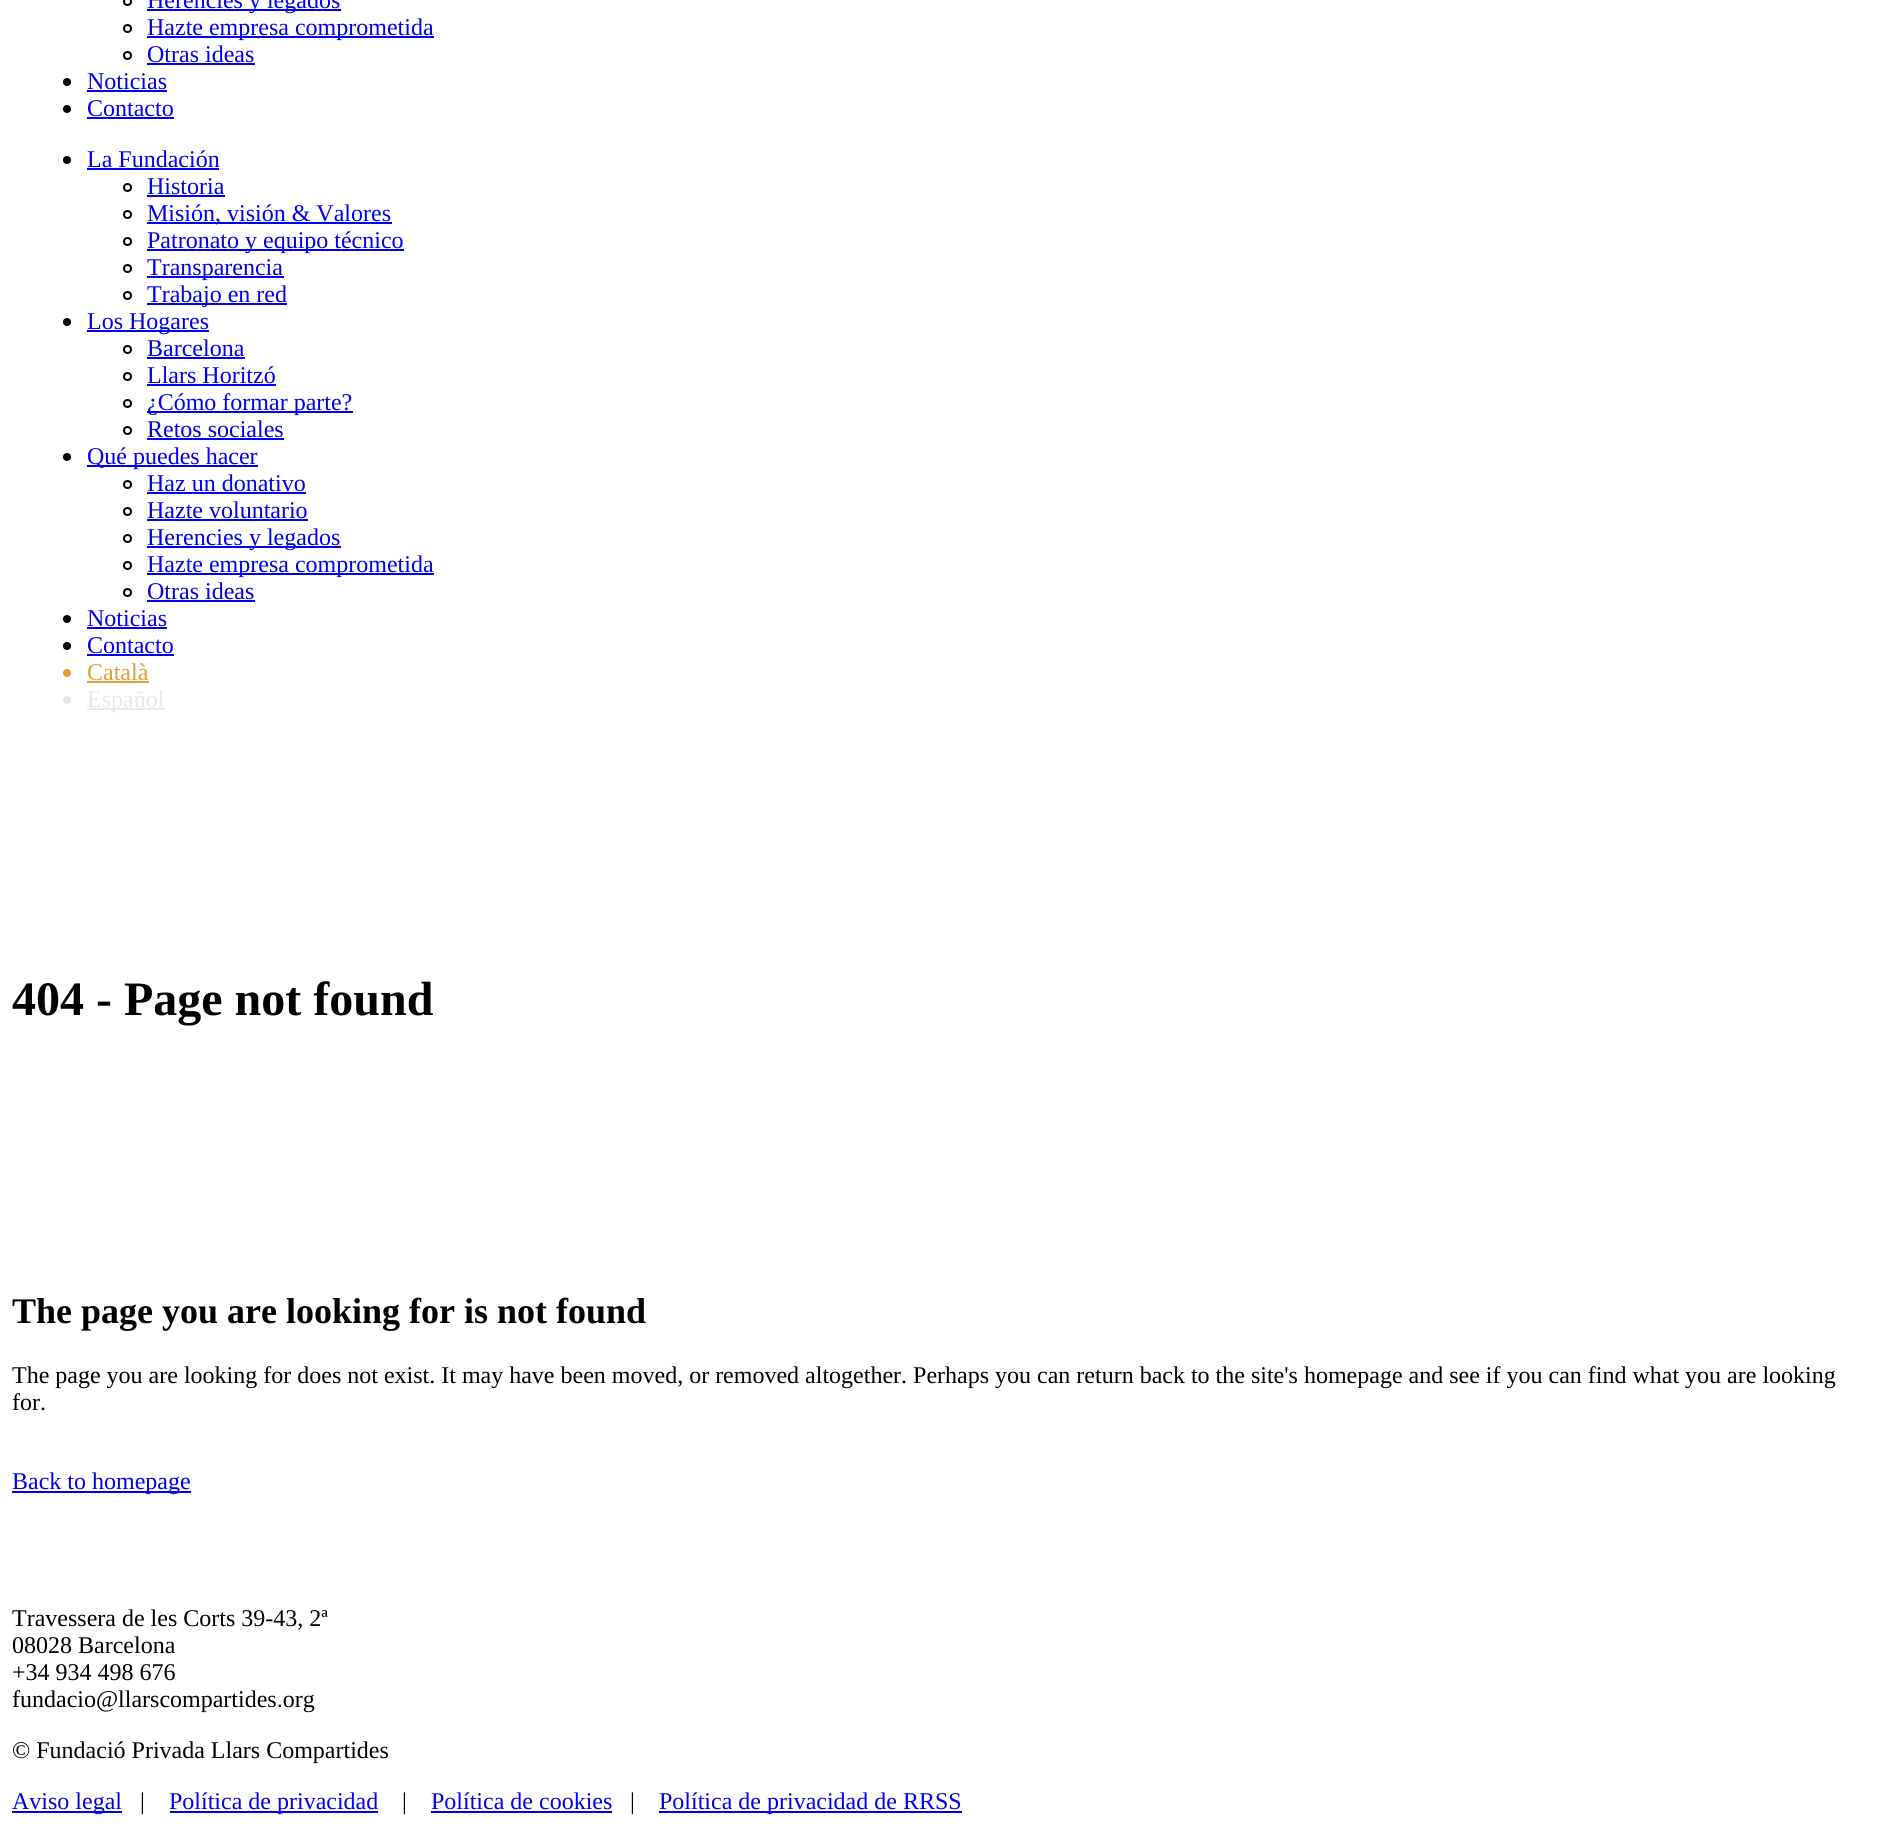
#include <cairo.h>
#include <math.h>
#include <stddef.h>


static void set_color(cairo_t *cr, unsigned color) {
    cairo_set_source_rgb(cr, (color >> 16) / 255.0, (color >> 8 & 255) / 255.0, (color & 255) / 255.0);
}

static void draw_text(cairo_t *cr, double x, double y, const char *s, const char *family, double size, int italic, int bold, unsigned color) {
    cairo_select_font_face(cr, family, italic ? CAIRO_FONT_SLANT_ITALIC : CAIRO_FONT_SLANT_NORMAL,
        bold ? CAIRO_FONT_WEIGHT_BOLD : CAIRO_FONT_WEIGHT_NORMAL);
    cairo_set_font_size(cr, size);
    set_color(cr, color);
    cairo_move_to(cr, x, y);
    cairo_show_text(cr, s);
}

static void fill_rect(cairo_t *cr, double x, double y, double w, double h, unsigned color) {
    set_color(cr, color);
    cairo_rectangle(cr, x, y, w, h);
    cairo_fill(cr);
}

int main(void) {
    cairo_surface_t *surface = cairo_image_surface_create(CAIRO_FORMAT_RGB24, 1878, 1838);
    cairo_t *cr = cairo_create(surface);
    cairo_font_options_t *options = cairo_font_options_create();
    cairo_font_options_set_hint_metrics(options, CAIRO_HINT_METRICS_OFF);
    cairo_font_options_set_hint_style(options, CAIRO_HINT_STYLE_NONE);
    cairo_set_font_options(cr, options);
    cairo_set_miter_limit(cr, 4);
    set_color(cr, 0xFFFFFF);
    cairo_paint(cr);
    cairo_arc(cr, 127.5, 1.5, 3.5, 0, 2 * M_PI);
    set_color(cr, 0x000000);
    cairo_stroke(cr);
    fill_rect(cr, 147, 9, 194, 2, 0x0000EE);
    draw_text(cr, 147, 8, "Herencies y legados", "Liberation Serif", 24, 0, 0, 0x0000EE);
    cairo_new_path(cr);
    cairo_arc(cr, 127.5, 28.5, 3.5, 0, 2 * M_PI);
    set_color(cr, 0x000000);
    cairo_stroke(cr);
    fill_rect(cr, 147, 36, 287, 2, 0x0000EE);
    draw_text(cr, 147, 35, "Hazte empresa comprometida", "Liberation Serif", 24, 0, 0, 0x0000EE);
    cairo_new_path(cr);
    cairo_arc(cr, 127.5, 55.5, 3.5, 0, 2 * M_PI);
    set_color(cr, 0x000000);
    cairo_stroke(cr);
    draw_text(cr, 147, 62, "Otras ideas", "Liberation Serif", 24, 0, 0, 0x0000EE);
    fill_rect(cr, 147, 63, 108, 2, 0x0000EE);
    set_color(cr, 0x000000);
    cairo_new_path(cr);
    cairo_arc(cr, 67, 82, 4, 0, 2 * M_PI);
    cairo_fill(cr);
    draw_text(cr, 87, 89, "Noticias", "Liberation Serif", 24, 0, 0, 0x0000EE);
    fill_rect(cr, 87, 90, 80, 2, 0x0000EE);
    set_color(cr, 0x000000);
    cairo_new_path(cr);
    cairo_arc(cr, 67, 109, 4, 0, 2 * M_PI);
    cairo_fill(cr);
    draw_text(cr, 87, 116, "Contacto", "Liberation Serif", 24, 0, 0, 0x0000EE);
    fill_rect(cr, 87, 117, 87, 2, 0x0000EE);
    set_color(cr, 0x000000);
    cairo_new_path(cr);
    cairo_arc(cr, 67, 160, 4, 0, 2 * M_PI);
    cairo_fill(cr);
    draw_text(cr, 87, 167, "La Fundación", "Liberation Serif", 24, 0, 0, 0x0000EE);
    fill_rect(cr, 87, 168, 132, 2, 0x0000EE);
    cairo_new_path(cr);
    cairo_arc(cr, 127.5, 187.5, 3.5, 0, 2 * M_PI);
    set_color(cr, 0x000000);
    cairo_stroke(cr);
    draw_text(cr, 147, 194, "Historia", "Liberation Serif", 24, 0, 0, 0x0000EE);
    fill_rect(cr, 147, 195, 78, 2, 0x0000EE);
    cairo_new_path(cr);
    cairo_arc(cr, 127.5, 214.5, 3.5, 0, 2 * M_PI);
    set_color(cr, 0x000000);
    cairo_stroke(cr);
    fill_rect(cr, 147, 222, 245, 2, 0x0000EE);
    draw_text(cr, 147, 221, "Misión, visión & Valores", "Liberation Serif", 24, 0, 0, 0x0000EE);
    cairo_new_path(cr);
    cairo_arc(cr, 127.5, 241.5, 3.5, 0, 2 * M_PI);
    set_color(cr, 0x000000);
    cairo_stroke(cr);
    fill_rect(cr, 147, 249, 257, 2, 0x0000EE);
    draw_text(cr, 147, 248, "Patronato y equipo técnico", "Liberation Serif", 24, 0, 0, 0x0000EE);
    cairo_new_path(cr);
    cairo_arc(cr, 127.5, 268.5, 3.5, 0, 2 * M_PI);
    set_color(cr, 0x000000);
    cairo_stroke(cr);
    fill_rect(cr, 147, 276, 137, 2, 0x0000EE);
    draw_text(cr, 147, 275, "Transparencia", "Liberation Serif", 24, 0, 0, 0x0000EE);
    cairo_new_path(cr);
    cairo_arc(cr, 127.5, 295.5, 3.5, 0, 2 * M_PI);
    set_color(cr, 0x000000);
    cairo_stroke(cr);
    fill_rect(cr, 147, 303, 140, 2, 0x0000EE);
    draw_text(cr, 147, 302, "Trabajo en red", "Liberation Serif", 24, 0, 0, 0x0000EE);
    set_color(cr, 0x000000);
    cairo_new_path(cr);
    cairo_arc(cr, 67, 322, 4, 0, 2 * M_PI);
    cairo_fill(cr);
    fill_rect(cr, 87, 330, 122, 2, 0x0000EE);
    draw_text(cr, 87, 329, "Los Hogares", "Liberation Serif", 24, 0, 0, 0x0000EE);
    cairo_new_path(cr);
    cairo_arc(cr, 127.5, 349.5, 3.5, 0, 2 * M_PI);
    set_color(cr, 0x000000);
    cairo_stroke(cr);
    draw_text(cr, 147, 356, "Barcelona", "Liberation Serif", 24, 0, 0, 0x0000EE);
    fill_rect(cr, 147, 357, 98, 2, 0x0000EE);
    cairo_new_path(cr);
    cairo_arc(cr, 127.5, 376.5, 3.5, 0, 2 * M_PI);
    set_color(cr, 0x000000);
    cairo_stroke(cr);
    draw_text(cr, 147, 383, "Llars Horitzó", "Liberation Serif", 24, 0, 0, 0x0000EE);
    fill_rect(cr, 147, 384, 129, 2, 0x0000EE);
    cairo_new_path(cr);
    cairo_arc(cr, 127.5, 403.5, 3.5, 0, 2 * M_PI);
    set_color(cr, 0x000000);
    cairo_stroke(cr);
    fill_rect(cr, 147, 411, 206, 2, 0x0000EE);
    draw_text(cr, 147, 410, "¿Cómo formar parte?", "Liberation Serif", 24, 0, 0, 0x0000EE);
    cairo_new_path(cr);
    cairo_arc(cr, 127.5, 430.5, 3.5, 0, 2 * M_PI);
    set_color(cr, 0x000000);
    cairo_stroke(cr);
    draw_text(cr, 147, 437, "Retos sociales", "Liberation Serif", 24, 0, 0, 0x0000EE);
    fill_rect(cr, 147, 438, 137, 2, 0x0000EE);
    set_color(cr, 0x000000);
    cairo_new_path(cr);
    cairo_arc(cr, 67, 457, 4, 0, 2 * M_PI);
    cairo_fill(cr);
    fill_rect(cr, 87, 465, 171, 2, 0x0000EE);
    draw_text(cr, 87, 464, "Qué puedes hacer", "Liberation Serif", 24, 0, 0, 0x0000EE);
    cairo_new_path(cr);
    cairo_arc(cr, 127.5, 484.5, 3.5, 0, 2 * M_PI);
    set_color(cr, 0x000000);
    cairo_stroke(cr);
    draw_text(cr, 147, 491, "Haz un donativo", "Liberation Serif", 24, 0, 0, 0x0000EE);
    fill_rect(cr, 147, 492, 159, 2, 0x0000EE);
    cairo_new_path(cr);
    cairo_arc(cr, 127.5, 511.5, 3.5, 0, 2 * M_PI);
    set_color(cr, 0x000000);
    cairo_stroke(cr);
    draw_text(cr, 147, 518, "Hazte voluntario", "Liberation Serif", 24, 0, 0, 0x0000EE);
    fill_rect(cr, 147, 519, 161, 2, 0x0000EE);
    cairo_new_path(cr);
    cairo_arc(cr, 127.5, 538.5, 3.5, 0, 2 * M_PI);
    set_color(cr, 0x000000);
    cairo_stroke(cr);
    fill_rect(cr, 147, 546, 194, 2, 0x0000EE);
    draw_text(cr, 147, 545, "Herencies y legados", "Liberation Serif", 24, 0, 0, 0x0000EE);
    cairo_new_path(cr);
    cairo_arc(cr, 127.5, 565.5, 3.5, 0, 2 * M_PI);
    set_color(cr, 0x000000);
    cairo_stroke(cr);
    fill_rect(cr, 147, 573, 287, 2, 0x0000EE);
    draw_text(cr, 147, 572, "Hazte empresa comprometida", "Liberation Serif", 24, 0, 0, 0x0000EE);
    cairo_new_path(cr);
    cairo_arc(cr, 127.5, 592.5, 3.5, 0, 2 * M_PI);
    set_color(cr, 0x000000);
    cairo_stroke(cr);
    draw_text(cr, 147, 599, "Otras ideas", "Liberation Serif", 24, 0, 0, 0x0000EE);
    fill_rect(cr, 147, 600, 108, 2, 0x0000EE);
    set_color(cr, 0x000000);
    cairo_new_path(cr);
    cairo_arc(cr, 67, 619, 4, 0, 2 * M_PI);
    cairo_fill(cr);
    draw_text(cr, 87, 626, "Noticias", "Liberation Serif", 24, 0, 0, 0x0000EE);
    fill_rect(cr, 87, 627, 80, 2, 0x0000EE);
    set_color(cr, 0x000000);
    cairo_new_path(cr);
    cairo_arc(cr, 67, 646, 4, 0, 2 * M_PI);
    cairo_fill(cr);
    draw_text(cr, 87, 653, "Contacto", "Liberation Serif", 24, 0, 0, 0x0000EE);
    fill_rect(cr, 87, 654, 87, 2, 0x0000EE);
    set_color(cr, 0xE29D34);
    cairo_new_path(cr);
    cairo_arc(cr, 67, 673, 4, 0, 2 * M_PI);
    cairo_fill(cr);
    draw_text(cr, 87, 680, "Català", "Liberation Serif", 24, 0, 0, 0xE29D34);
    fill_rect(cr, 87, 681, 62, 2, 0xE29D34);
    set_color(cr, 0xE8E8E8);
    cairo_new_path(cr);
    cairo_arc(cr, 67, 700, 4, 0, 2 * M_PI);
    cairo_fill(cr);
    fill_rect(cr, 87, 708, 78, 2, 0xE8E8E8);
    draw_text(cr, 87, 707, "Español", "Liberation Serif", 24, 0, 0, 0xE8E8E8);
    draw_text(cr, 12, 1015, "404 - Page not found", "Liberation Serif", 48, 0, 1, 0x000000);
    draw_text(cr, 12, 1323, "The page you are looking for is not found", "Liberation Serif", 36, 0, 1, 0x000000);
    draw_text(cr, 12, 1383, "The page you are looking for does not exist. It may have been moved, or removed altogether. Perhaps you can return back to the site's homepage and see if you can find what you are looking", "Liberation Serif", 24, 0, 0, 0x000000);
    draw_text(cr, 12, 1410, "for.", "Liberation Serif", 24, 0, 0, 0x000000);
    fill_rect(cr, 12, 1491, 179, 2, 0x0000EE);
    draw_text(cr, 12, 1489, "Back to homepage", "Liberation Serif", 24, 0, 0, 0x0000EE);
    draw_text(cr, 12, 1626, "Travessera de les Corts 39-43, 2ª", "Liberation Serif", 24, 0, 0, 0x000000);
    draw_text(cr, 12, 1653, "08028 Barcelona", "Liberation Serif", 24, 0, 0, 0x000000);
    draw_text(cr, 12, 1680, "+34 934 498 676", "Liberation Serif", 24, 0, 0, 0x000000);
    draw_text(cr, 12, 1707, "fundacio@llarscompartides.org", "Liberation Serif", 24, 0, 0, 0x000000);
    draw_text(cr, 12, 1758, "© Fundació Privada Llars Compartides", "Liberation Serif", 24, 0, 0, 0x000000);
    fill_rect(cr, 12, 1811, 110, 2, 0x0000EE);
    draw_text(cr, 12, 1809, "Aviso legal", "Liberation Serif", 24, 0, 0, 0x0000EE);
    draw_text(cr, 140, 1809, "|", "Liberation Serif", 24, 0, 0, 0x000000);
    fill_rect(cr, 170, 1811, 208, 2, 0x0000EE);
    draw_text(cr, 169, 1809, "Política de privacidad", "Liberation Serif", 24, 0, 0, 0x0000EE);
    draw_text(cr, 402, 1809, "|", "Liberation Serif", 24, 0, 0, 0x000000);
    draw_text(cr, 431, 1809, "Política de cookies", "Liberation Serif", 24, 0, 0, 0x0000EE);
    fill_rect(cr, 431, 1811, 181, 2, 0x0000EE);
    draw_text(cr, 630, 1809, "|", "Liberation Serif", 24, 0, 0, 0x000000);
    fill_rect(cr, 659, 1811, 303, 2, 0x0000EE);
    draw_text(cr, 659, 1809, "Política de privacidad de RRSS", "Liberation Serif", 24, 0, 0, 0x0000EE);
    cairo_surface_write_to_png(surface, "output.png");
    cairo_font_options_destroy(options);
    cairo_destroy(cr);
    cairo_surface_destroy(surface);
    return 0;
}
